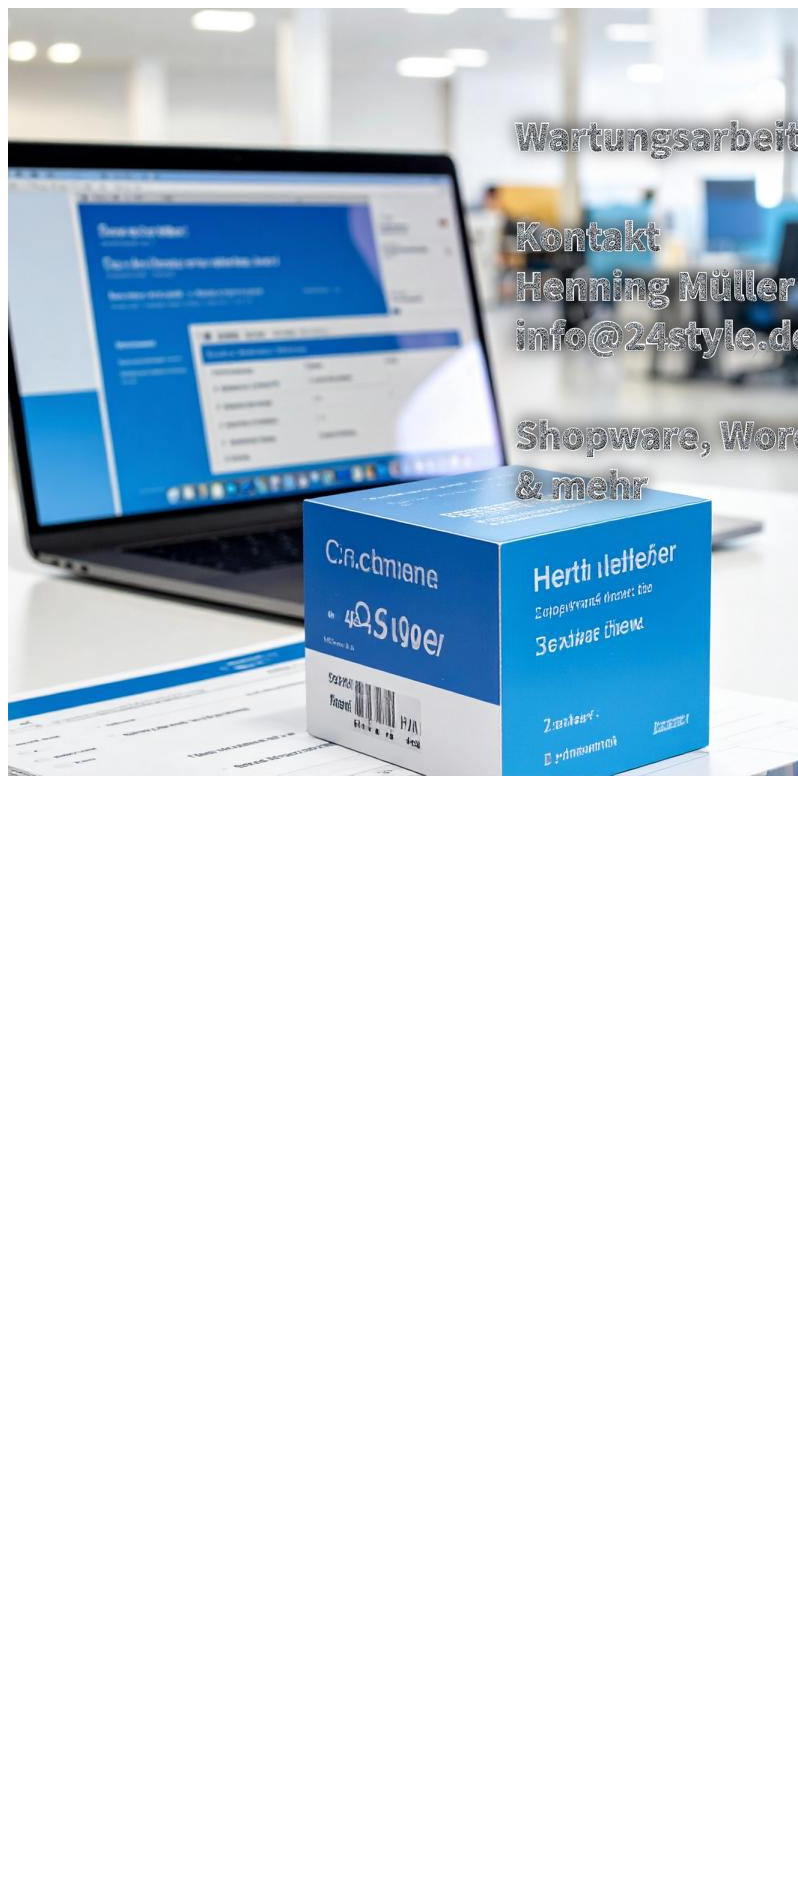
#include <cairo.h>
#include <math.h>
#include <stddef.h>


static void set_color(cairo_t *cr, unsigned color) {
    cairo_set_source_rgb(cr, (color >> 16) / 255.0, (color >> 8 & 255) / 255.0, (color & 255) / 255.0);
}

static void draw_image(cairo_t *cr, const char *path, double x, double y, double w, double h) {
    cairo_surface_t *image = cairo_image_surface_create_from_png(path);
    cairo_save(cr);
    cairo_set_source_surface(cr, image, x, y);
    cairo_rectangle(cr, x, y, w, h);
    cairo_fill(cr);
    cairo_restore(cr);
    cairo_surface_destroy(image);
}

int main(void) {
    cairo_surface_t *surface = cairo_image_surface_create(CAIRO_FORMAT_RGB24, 798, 1891);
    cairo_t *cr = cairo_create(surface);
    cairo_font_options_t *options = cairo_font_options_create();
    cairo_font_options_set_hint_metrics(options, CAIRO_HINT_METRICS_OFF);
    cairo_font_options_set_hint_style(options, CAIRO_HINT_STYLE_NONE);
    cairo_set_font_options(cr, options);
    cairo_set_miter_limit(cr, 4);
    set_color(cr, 0xFFFFFF);
    cairo_paint(cr);
    draw_image(cr, "assets/img1.png", 8, 8, 790, 768);
    cairo_surface_write_to_png(surface, "output.png");
    cairo_font_options_destroy(options);
    cairo_destroy(cr);
    cairo_surface_destroy(surface);
    return 0;
}
